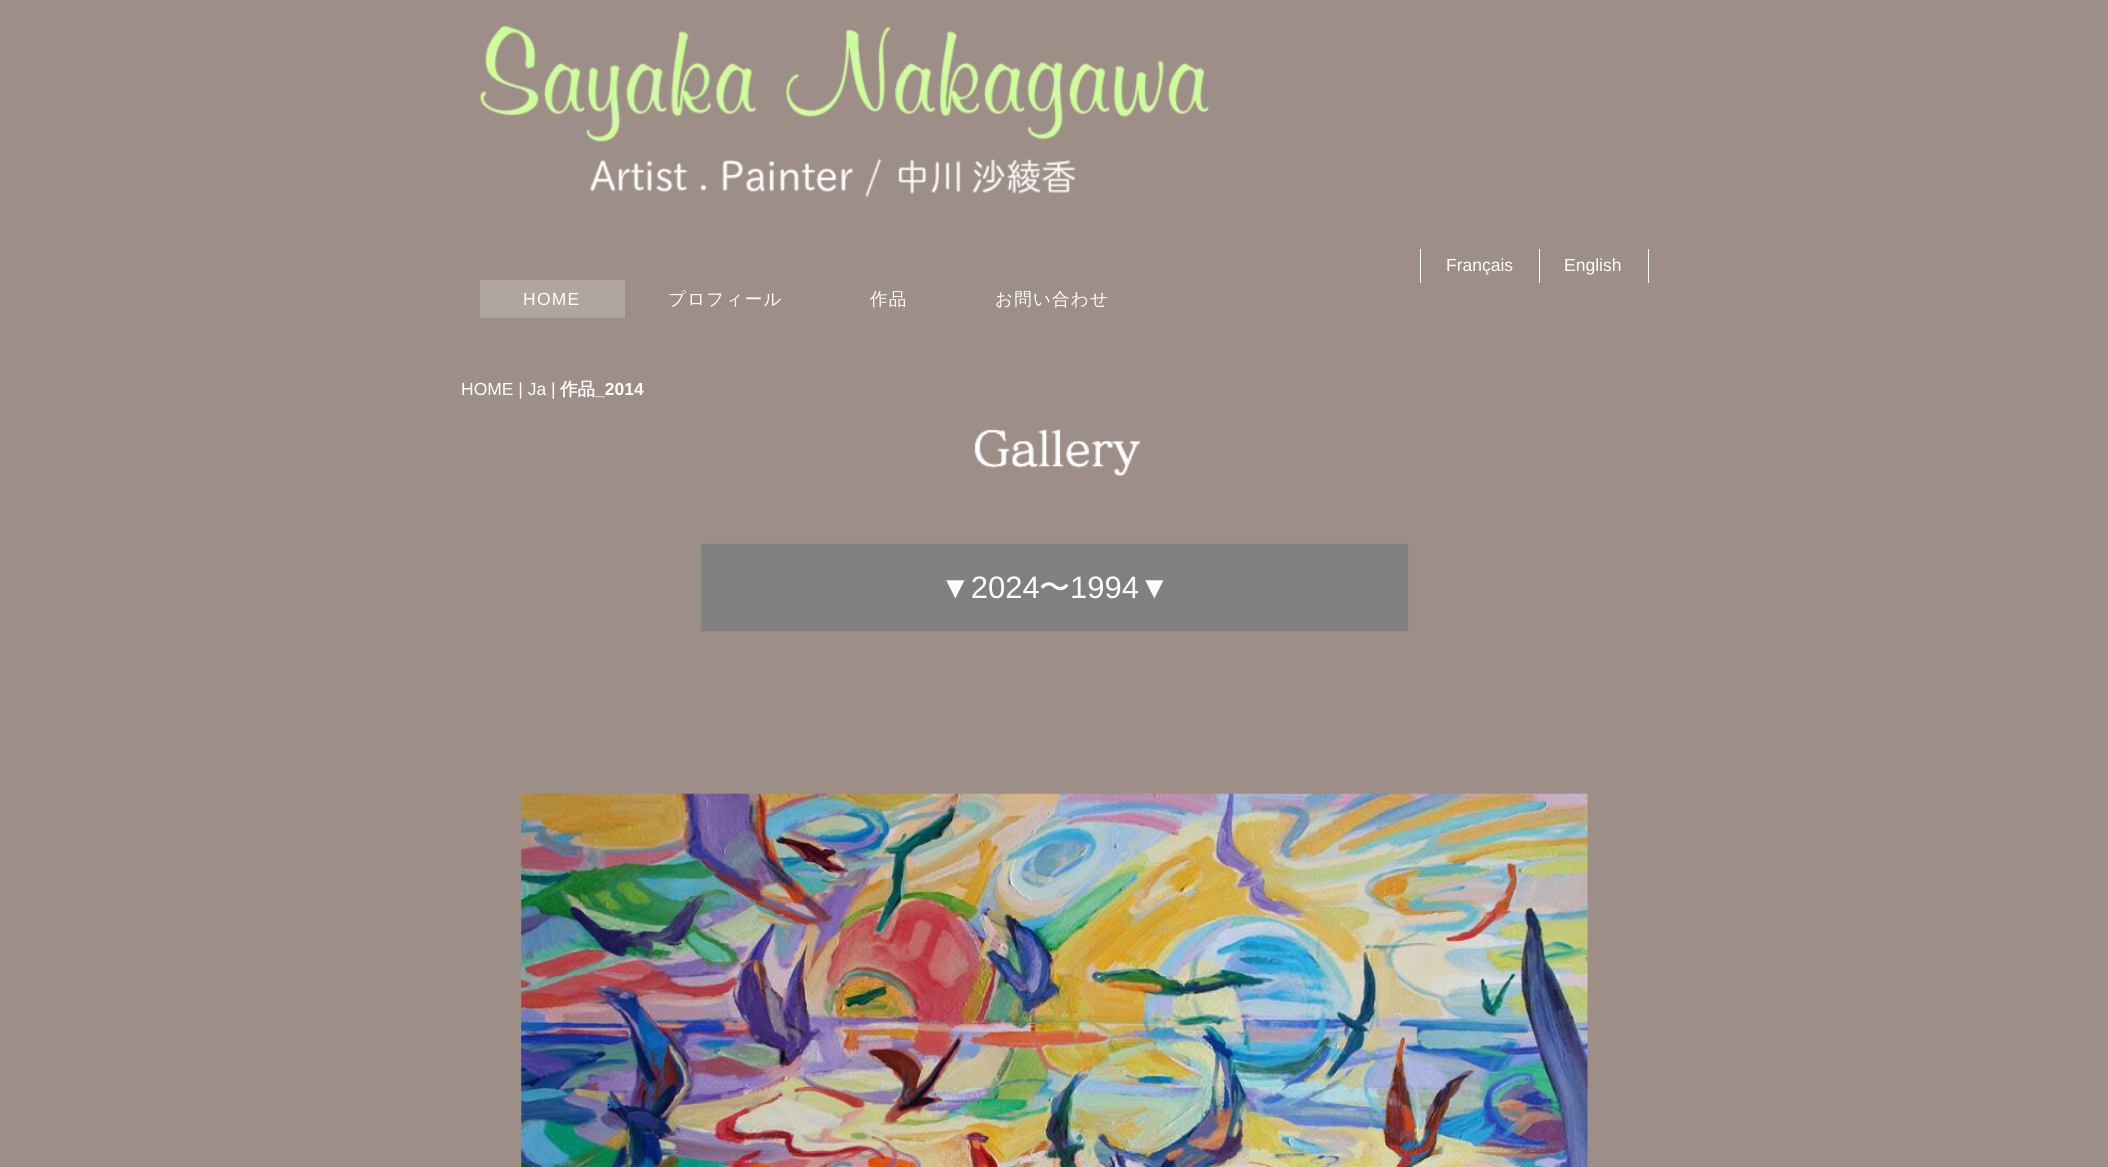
#include <cairo.h>
#include <math.h>
#include <stddef.h>


static void set_color(cairo_t *cr, unsigned color) {
    cairo_set_source_rgb(cr, (color >> 16) / 255.0, (color >> 8 & 255) / 255.0, (color & 255) / 255.0);
}

static void draw_text(cairo_t *cr, double x, double y, const char *s, const char *family, double size, int italic, int bold, unsigned color) {
    cairo_select_font_face(cr, family, italic ? CAIRO_FONT_SLANT_ITALIC : CAIRO_FONT_SLANT_NORMAL,
        bold ? CAIRO_FONT_WEIGHT_BOLD : CAIRO_FONT_WEIGHT_NORMAL);
    cairo_set_font_size(cr, size);
    set_color(cr, color);
    cairo_move_to(cr, x, y);
    cairo_show_text(cr, s);
}

static void draw_spaced(cairo_t *cr, double x, double y, const char *s, double letter, double word) {
    cairo_move_to(cr, x, y);
    while (*s) {
        char ch[5] = {0};
        int n = 0;
        do ch[n++] = *s++; while ((*s & 0xC0) == 0x80);
        cairo_show_text(cr, ch);
        cairo_rel_move_to(cr, letter + word * (*ch == ' '), 0);
    }
}

static void fill_rect(cairo_t *cr, double x, double y, double w, double h, unsigned color) {
    set_color(cr, color);
    cairo_rectangle(cr, x, y, w, h);
    cairo_fill(cr);
}

static void draw_image(cairo_t *cr, const char *path, double x, double y, double w, double h) {
    cairo_surface_t *image = cairo_image_surface_create_from_png(path);
    cairo_save(cr);
    cairo_set_source_surface(cr, image, x, y);
    cairo_rectangle(cr, x, y, w, h);
    cairo_fill(cr);
    cairo_restore(cr);
    cairo_surface_destroy(image);
}

int main(void) {
    cairo_surface_t *surface = cairo_image_surface_create(CAIRO_FORMAT_RGB24, 2108, 1167);
    cairo_t *cr = cairo_create(surface);
    cairo_font_options_t *options = cairo_font_options_create();
    cairo_font_options_set_hint_metrics(options, CAIRO_HINT_METRICS_OFF);
    cairo_font_options_set_hint_style(options, CAIRO_HINT_STYLE_NONE);
    cairo_set_font_options(cr, options);
    cairo_set_miter_limit(cr, 4);
    set_color(cr, 0x9D8E87);
    cairo_paint(cr);
    draw_image(cr, "assets/img1.png", 480, 26, 729, 172);
    fill_rect(cr, 1539, 249, 1, 34, 0xFFFFFF);
    fill_rect(cr, 1420, 249, 1, 34, 0xFFFFFF);
    draw_text(cr, 1446, 271, "Français", "Liberation Sans", 17.5, 0, 0, 0xFFFFFF);
    fill_rect(cr, 1648, 249, 1, 34, 0xFFFFFF);
    draw_text(cr, 1564, 271, "English", "Liberation Sans", 17.5, 0, 0, 0xFFFFFF);
    fill_rect(cr, 480, 280, 145, 38, 0xB1A59F);
    cairo_select_font_face(cr, "WenQuanYi Zen Hei Medium", CAIRO_FONT_SLANT_NORMAL, CAIRO_FONT_WEIGHT_NORMAL);
    set_color(cr, 0xFFFFFF);
    draw_spaced(cr, 668, 305, "プロフィール", 1.25, 0);
    draw_spaced(cr, 870, 305, "作品", 1.25, 0);
    draw_spaced(cr, 995, 305, "お問い合わせ", 1.25, 0);
    cairo_select_font_face(cr, "Liberation Sans", CAIRO_FONT_SLANT_NORMAL, CAIRO_FONT_WEIGHT_NORMAL);
    draw_spaced(cr, 523, 305, "HOME", 1.25, 0);
    draw_text(cr, 461, 395, "HOME | Ja |", "Liberation Sans", 17.5, 0, 0, 0xFFFFFF);
    draw_text(cr, 560, 395, "作品", "WenQuanYi Zen Hei", 17.5, 0, 1, 0xFFFFFF);
    draw_text(cr, 595, 395, "_2014", "Liberation Sans", 17.5, 0, 1, 0xFFFFFF);
    draw_image(cr, "assets/img2.png", 974, 429, 167, 48);
    draw_image(cr, "assets/img3.png", 700, 543, 709, 89);
    draw_text(cr, 940, 598, "▼2024", "Liberation Sans", 31, 0, 0, 0xFFFFFF);
    draw_text(cr, 1039, 598, "〜", "WenQuanYi Zen Hei Medium", 31, 0, 0, 0xFFFFFF);
    draw_text(cr, 1070, 598, "1994▼", "Liberation Sans", 31, 0, 0, 0xFFFFFF);
    draw_image(cr, "assets/img4.png", 521, 793, 1067, 374);
    cairo_surface_write_to_png(surface, "output.png");
    cairo_font_options_destroy(options);
    cairo_destroy(cr);
    cairo_surface_destroy(surface);
    return 0;
}
